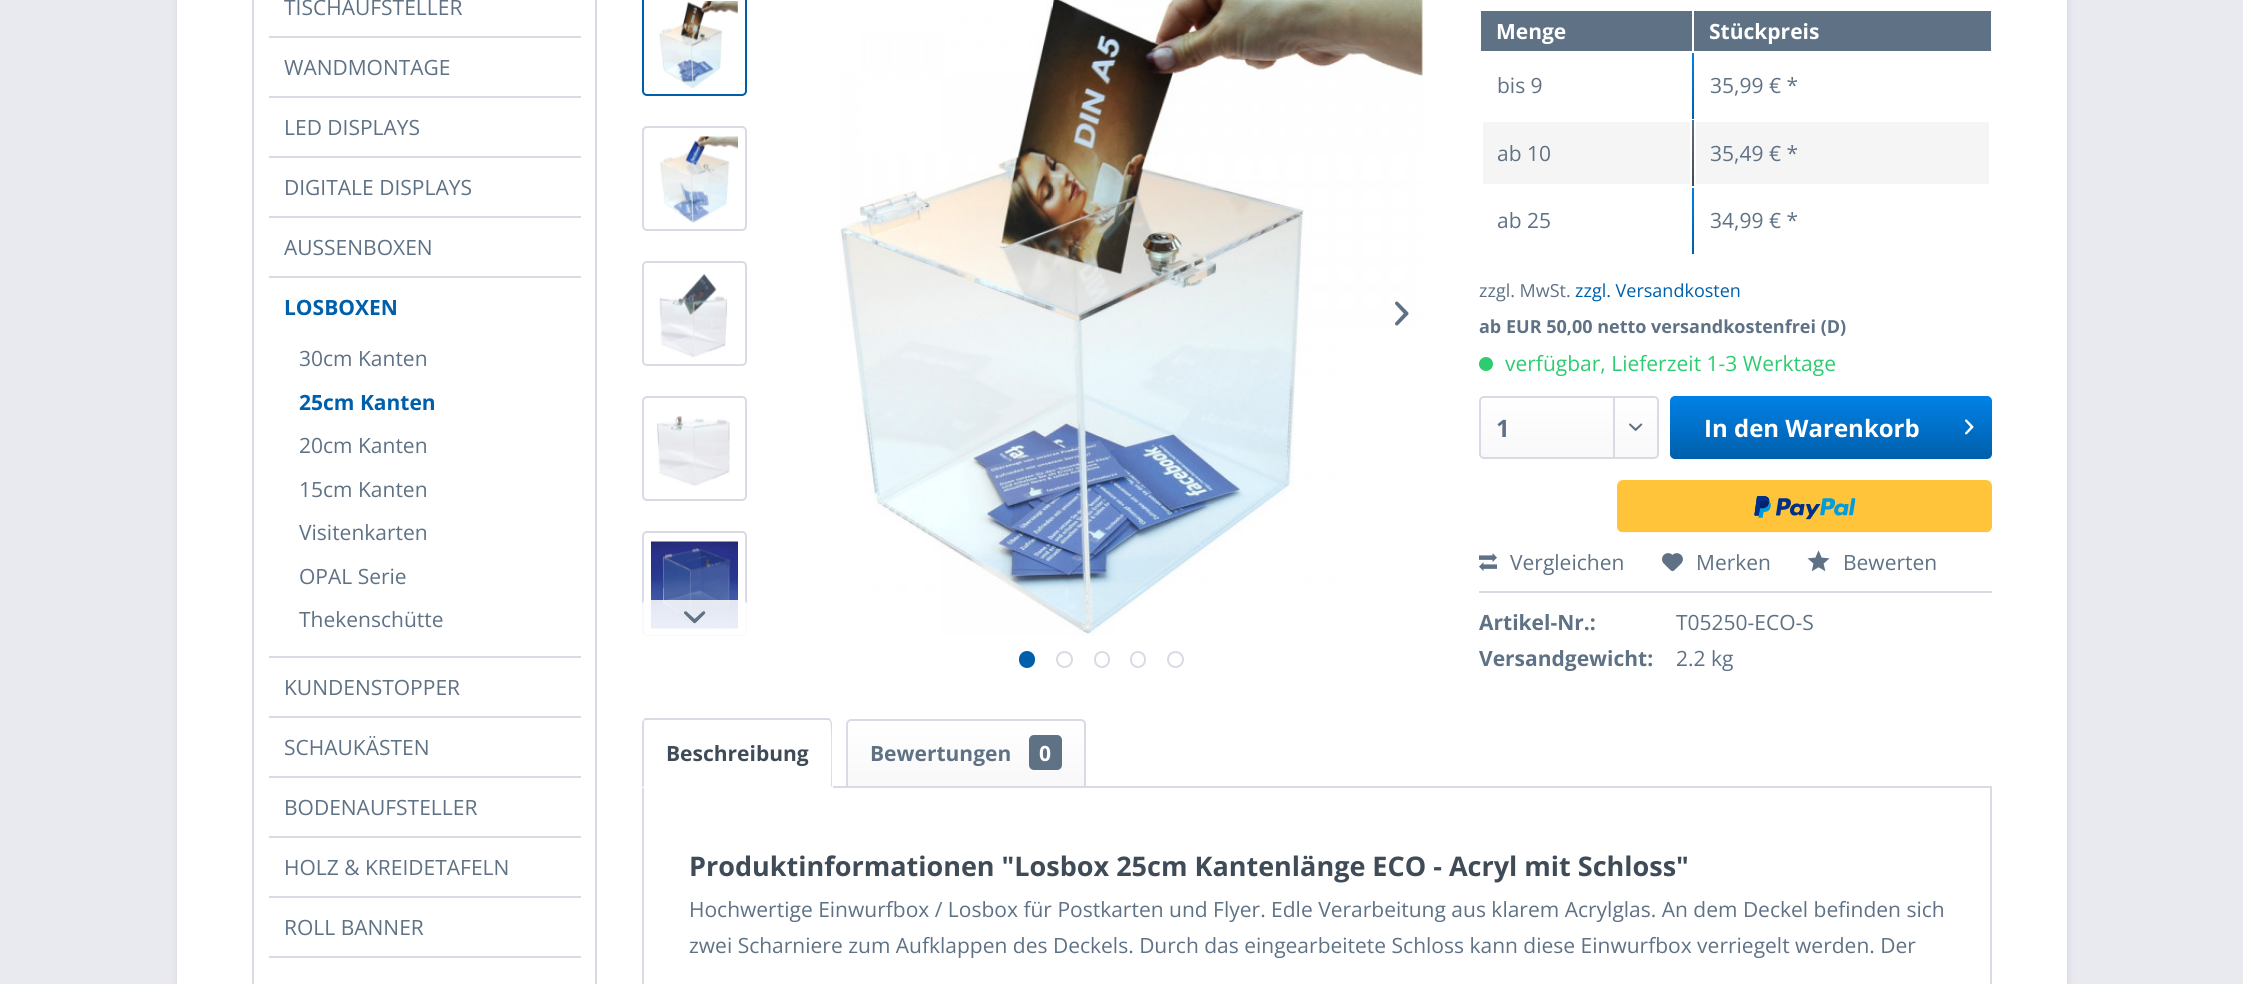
#include <cairo.h>
#include <math.h>
#include <stddef.h>


static void set_color(cairo_t *cr, unsigned color) {
    cairo_set_source_rgb(cr, (color >> 16) / 255.0, (color >> 8 & 255) / 255.0, (color & 255) / 255.0);
}

static void draw_text(cairo_t *cr, double x, double y, const char *s, const char *family, double size, int italic, int bold, unsigned color) {
    cairo_select_font_face(cr, family, italic ? CAIRO_FONT_SLANT_ITALIC : CAIRO_FONT_SLANT_NORMAL,
        bold ? CAIRO_FONT_WEIGHT_BOLD : CAIRO_FONT_WEIGHT_NORMAL);
    cairo_set_font_size(cr, size);
    set_color(cr, color);
    cairo_move_to(cr, x, y);
    cairo_show_text(cr, s);
}

static void fill_rect(cairo_t *cr, double x, double y, double w, double h, unsigned color) {
    set_color(cr, color);
    cairo_rectangle(cr, x, y, w, h);
    cairo_fill(cr);
}

static void rounded_rect(cairo_t *cr, double x, double y, double w, double h, double r) {
    cairo_new_sub_path(cr);
    cairo_arc(cr, x + w - r, y + h - r, r, 0, M_PI / 2);
    cairo_arc(cr, x + r, y + h - r, r, M_PI / 2, M_PI);
    cairo_arc(cr, x + r, y + r, r, M_PI, 1.5 * M_PI);
    cairo_arc(cr, x + w - r, y + r, r, 1.5 * M_PI, 2 * M_PI);
    cairo_close_path(cr);
}

static void draw_shadow(cairo_t *cr, double x, double y, double w, double h, double r, double blur, double alpha) {
    cairo_push_group_with_content(cr, CAIRO_CONTENT_ALPHA);
    cairo_set_operator(cr, CAIRO_OPERATOR_SOURCE);
    for (int i = 15; i >= -15 && fmin(w, h) + blur * i / 3 > 0; i -= 2) {
        double e = blur * i / 6;
        cairo_set_source_rgba(cr, 0, 0, 0, alpha * erfc((i - 1) / 8.5) / 2);
        rounded_rect(cr, x - e, y - e, w + 2 * e, h + 2 * e, fmax(0, fmin(r + e + blur * .6, fmin(w, h) / 2 + e)));
        cairo_fill(cr);
    }
    cairo_pattern_t *soft = cairo_pop_group(cr);
    cairo_mask(cr, soft);
    cairo_pattern_destroy(soft);
}

static void draw_image(cairo_t *cr, const char *path, double x, double y, double w, double h) {
    cairo_surface_t *image = cairo_image_surface_create_from_png(path);
    cairo_save(cr);
    cairo_set_source_surface(cr, image, x, y);
    cairo_rectangle(cr, x, y, w, h);
    cairo_fill(cr);
    cairo_restore(cr);
    cairo_surface_destroy(image);
}

int main(void) {
    cairo_surface_t *surface = cairo_image_surface_create(CAIRO_FORMAT_RGB24, 2243, 984);
    cairo_t *cr = cairo_create(surface);
    cairo_font_options_t *options = cairo_font_options_create();
    cairo_font_options_set_hint_metrics(options, CAIRO_HINT_METRICS_OFF);
    cairo_font_options_set_hint_style(options, CAIRO_HINT_STYLE_NONE);
    cairo_set_font_options(cr, options);
    cairo_set_miter_limit(cr, 4);
    cairo_pattern_t *gradient;
    set_color(cr, 0xE9E9F0);
    cairo_paint(cr);
    set_color(cr, 0xDADAE5);
    draw_shadow(cr, 176, -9, 1893, 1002, 0, 3, 1);
    fill_rect(cr, 177, 0, 1890, 984, 0xFFFFFF);
    cairo_rectangle(cr, 253, -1, 343, 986);
    set_color(cr, 0xDADAE5);
    cairo_stroke(cr);
    fill_rect(cr, 269, 36, 312, 2, 0xDADAE5);
    draw_text(cr, 284, 15, "TISCHAUFSTELLER", "Open Sans", 21, 0, 0, 0x5F7285);
    fill_rect(cr, 269, 96, 312, 2, 0xDADAE5);
    draw_text(cr, 284, 75, "WANDMONTAGE", "Open Sans", 21, 0, 0, 0x5F7285);
    fill_rect(cr, 269, 156, 312, 2, 0xDADAE5);
    draw_text(cr, 284, 135, "LED DISPLAYS", "Open Sans", 21, 0, 0, 0x5F7285);
    fill_rect(cr, 269, 216, 312, 2, 0xDADAE5);
    draw_text(cr, 284, 195, "DIGITALE DISPLAYS", "Open Sans", 21, 0, 0, 0x5F7285);
    fill_rect(cr, 269, 276, 312, 2, 0xDADAE5);
    draw_text(cr, 284, 255, "AUSSENBOXEN", "Open Sans", 21, 0, 0, 0x5F7285);
    fill_rect(cr, 269, 656, 312, 2, 0xDADAE5);
    draw_text(cr, 284, 315, "LOSBOXEN", "Open Sans", 21, 0, 1, 0x005FAA);
    draw_text(cr, 299, 366, "30cm Kanten", "Open Sans", 21, 0, 0, 0x5F7285);
    draw_text(cr, 299, 410, "25cm Kanten", "Open Sans", 21, 0, 1, 0x005FAA);
    draw_text(cr, 299, 453, "20cm Kanten", "Open Sans", 21, 0, 0, 0x5F7285);
    draw_text(cr, 299, 497, "15cm Kanten", "Open Sans", 21, 0, 0, 0x5F7285);
    draw_text(cr, 299, 540, "Visitenkarten", "Open Sans", 21, 0, 0, 0x5F7285);
    draw_text(cr, 299, 584, "OPAL Serie", "Open Sans", 21, 0, 0, 0x5F7285);
    draw_text(cr, 299, 627, "Thekenschütte", "Open Sans", 21, 0, 0, 0x5F7285);
    fill_rect(cr, 269, 716, 312, 2, 0xDADAE5);
    draw_text(cr, 284, 695, "KUNDENSTOPPER", "Open Sans", 21, 0, 0, 0x5F7285);
    fill_rect(cr, 269, 776, 312, 2, 0xDADAE5);
    draw_text(cr, 284, 755, "SCHAUKÄSTEN", "Open Sans", 21, 0, 0, 0x5F7285);
    fill_rect(cr, 269, 836, 312, 2, 0xDADAE5);
    draw_text(cr, 284, 815, "BODENAUFSTELLER", "Open Sans", 21, 0, 0, 0x5F7285);
    fill_rect(cr, 269, 896, 312, 2, 0xDADAE5);
    draw_text(cr, 284, 875, "HOLZ & KREIDETAFELN", "Open Sans", 21, 0, 0, 0x5F7285);
    fill_rect(cr, 269, 956, 312, 2, 0xDADAE5);
    draw_text(cr, 284, 935, "ROLL BANNER", "Open Sans", 21, 0, 0, 0x5F7285);
    rounded_rect(cr, 643, -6, 103, 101, 4);
    set_color(cr, 0x005FAA);
    cairo_stroke(cr);
    draw_image(cr, "assets/img1.png", 659, 1, 79, 88);
    rounded_rect(cr, 643, 127, 103, 103, 4);
    set_color(cr, 0xDADAE5);
    cairo_stroke(cr);
    draw_image(cr, "assets/img2.png", 660, 136, 78, 87);
    rounded_rect(cr, 643, 262, 103, 103, 4);
    cairo_stroke(cr);
    draw_image(cr, "assets/img3.png", 659, 273, 69, 85);
    rounded_rect(cr, 643, 397, 103, 103, 4);
    cairo_stroke(cr);
    draw_image(cr, "assets/img4.png", 657, 415, 73, 71);
    rounded_rect(cr, 643, 532, 103, 103, 4);
    cairo_stroke(cr);
    draw_image(cr, "assets/img5.png", 651, 541, 87, 88);
    cairo_set_source_rgba(cr, 1, 1, 1, 0.85);
    cairo_new_path(cr);
    cairo_move_to(cr, 647, 602);
    cairo_line_to(cr, 743, 602);
    cairo_curve_to(cr, 744.5, 602, 746, 603.5, 746, 605);
    cairo_line_to(cr, 746, 635);
    cairo_line_to(cr, 644, 635);
    cairo_line_to(cr, 644, 605);
    cairo_curve_to(cr, 644, 603.5, 645.5, 602, 647, 602);
    cairo_close_path(cr);
    cairo_fill(cr);
    cairo_new_path(cr);
    cairo_move_to(cr, 647, 601);
    cairo_line_to(cr, 742, 601);
    cairo_curve_to(cr, 744, 601, 746, 603, 746, 605);
    cairo_line_to(cr, 746, 635);
    cairo_line_to(cr, 643, 635);
    cairo_line_to(cr, 643, 605);
    cairo_curve_to(cr, 643, 603, 645, 601, 647, 601);
    cairo_close_path(cr);
    cairo_stroke(cr);
    draw_image(cr, "assets/img6.png", 684, 611, 22, 13);
    draw_image(cr, "assets/img7.png", 839, 0, 584, 636);
    draw_image(cr, "assets/img8.png", 1395, 301, 14, 25);
    set_color(cr, 0x005FAA);
    rounded_rect(cr, 1020, 652, 14, 15, 7);
    cairo_fill_preserve(cr);
    cairo_stroke(cr);
    cairo_arc(cr, 1064.5, 659.5, 7.5, 0, 2 * M_PI);
    set_color(cr, 0xDADAE5);
    cairo_stroke(cr);
    rounded_rect(cr, 1095, 652, 14, 15, 7);
    cairo_stroke(cr);
    rounded_rect(cr, 1131, 652, 14, 15, 7);
    cairo_stroke(cr);
    cairo_arc(cr, 1175.5, 659.5, 7.5, 0, 2 * M_PI);
    cairo_stroke(cr);
    fill_rect(cr, 1481, 11, 211, 40, 0x5F7285);
    draw_text(cr, 1496, 39, "Menge", "Open Sans", 21, 0, 1, 0xFFFFFF);
    fill_rect(cr, 1694, 11, 297, 40, 0x5F7285);
    draw_text(cr, 1709, 39, "Stückpreis", "Open Sans", 21, 0, 1, 0xFFFFFF);
    gradient = cairo_pattern_create_linear(1736, 52, 1736, 119);
    cairo_pattern_add_color_stop_rgba(gradient, 0, 0, 0.506, 0.906, 1);
    cairo_pattern_add_color_stop_rgba(gradient, 1, 0, 0.373, 0.667, 1);
    cairo_set_source(cr, gradient);
    cairo_pattern_destroy(gradient);
    cairo_rectangle(cr, 1692, 53, 2, 66);
    cairo_fill(cr);
    draw_text(cr, 1497, 93, "bis 9", "Open Sans", 21, 0, 0, 0x5F7285);
    draw_text(cr, 1710, 93, "35,99 € *", "Open Sans", 21, 0, 0, 0x5F7285);
    gradient = cairo_pattern_create_linear(1736, 120, 1736, 186);
    cairo_pattern_add_color_stop_rgba(gradient, 0, 0.373, 0.447, 0.522, 1);
    cairo_pattern_add_color_stop_rgba(gradient, 1, 0.247, 0.298, 0.345, 1);
    cairo_set_source(cr, gradient);
    cairo_pattern_destroy(gradient);
    cairo_rectangle(cr, 1692, 120, 2, 66);
    cairo_fill(cr);
    fill_rect(cr, 1483, 122, 207, 62, 0xF5F5F5);
    draw_text(cr, 1497, 161, "ab 10", "Open Sans", 21, 0, 0, 0x5F7285);
    fill_rect(cr, 1696, 122, 293, 62, 0xF5F5F5);
    draw_text(cr, 1710, 161, "35,49 € *", "Open Sans", 21, 0, 0, 0x5F7285);
    gradient = cairo_pattern_create_linear(1736, 187, 1736, 254);
    cairo_pattern_add_color_stop_rgba(gradient, 0, 0, 0.506, 0.906, 1);
    cairo_pattern_add_color_stop_rgba(gradient, 1, 0, 0.373, 0.667, 1);
    cairo_set_source(cr, gradient);
    cairo_pattern_destroy(gradient);
    cairo_rectangle(cr, 1692, 188, 2, 66);
    cairo_fill(cr);
    draw_text(cr, 1497, 228, "ab 25", "Open Sans", 21, 0, 0, 0x5F7285);
    draw_text(cr, 1710, 228, "34,99 € *", "Open Sans", 21, 0, 0, 0x5F7285);
    draw_text(cr, 1479, 297, "zzgl. MwSt.", "Open Sans", 18, 0, 0, 0x5F7285);
    draw_text(cr, 1575, 297, "zzgl. Versandkosten", "Open Sans", 18, 0, 0, 0x005FAA);
    draw_text(cr, 1479, 333, "ab EUR 50,00 netto versandkostenfrei (D)", "Open Sans", 18, 0, 1, 0x5F7285);
    set_color(cr, 0x2ECC71);
    cairo_new_path(cr);
    cairo_arc(cr, 1486, 364, 7, 0, 2 * M_PI);
    cairo_fill(cr);
    draw_text(cr, 1505, 371, "verfügbar, Lieferzeit 1-3 Werktage", "Open Sans", 21, 0, 0, 0x2ECC71);
    gradient = cairo_pattern_create_linear(1569, 398, 1569, 458);
    cairo_pattern_add_color_stop_rgba(gradient, 0, 1, 1, 1, 1);
    cairo_pattern_add_color_stop_rgba(gradient, 1, 0.973, 0.973, 0.98, 1);
    cairo_set_source(cr, gradient);
    cairo_pattern_destroy(gradient);
    rounded_rect(cr, 1481, 398, 177, 60, 3);
    cairo_fill(cr);
    rounded_rect(cr, 1480, 397, 178, 61, 4);
    set_color(cr, 0xDADAE5);
    cairo_stroke(cr);
    draw_text(cr, 1496, 437, "1", "Open Sans", 24, 0, 1, 0x5F7285);
    fill_rect(cr, 1613, 398, 2, 60, 0xDADAE5);
    draw_image(cr, "assets/img9.png", 1629, 423, 14, 8);
    gradient = cairo_pattern_create_linear(1831, 396, 1831, 459);
    cairo_pattern_add_color_stop_rgba(gradient, 0, 0, 0.506, 0.906, 1);
    cairo_pattern_add_color_stop_rgba(gradient, 1, 0, 0.373, 0.667, 1);
    cairo_set_source(cr, gradient);
    cairo_pattern_destroy(gradient);
    rounded_rect(cr, 1670, 396, 322, 63, 5);
    cairo_fill(cr);
    draw_text(cr, 1704, 437, "In den Warenkorb", "Open Sans", 24, 0, 1, 0xFFFFFF);
    draw_image(cr, "assets/img10.png", 1965, 419, 9, 16);
    draw_image(cr, "assets/img11.png", 1617, 480, 375, 53);
    fill_rect(cr, 1479, 591, 513, 2, 0xDADAE5);
    draw_image(cr, "assets/img12.png", 1479, 553, 18, 18);
    draw_text(cr, 1510, 570, "Vergleichen", "Open Sans", 21, 0, 0, 0x5F7285);
    draw_image(cr, "assets/img13.png", 1662, 553, 21, 19);
    draw_text(cr, 1696, 570, "Merken", "Open Sans", 21, 0, 0, 0x5F7285);
    draw_image(cr, "assets/img14.png", 1807, 550, 23, 22);
    draw_text(cr, 1843, 570, "Bewerten", "Open Sans", 21, 0, 0, 0x5F7285);
    draw_text(cr, 1479, 630, "Artikel-Nr.:", "Open Sans", 21, 0, 1, 0x5F7285);
    draw_text(cr, 1676, 630, "T05250-ECO-S", "Open Sans", 21, 0, 0, 0x5F7285);
    draw_text(cr, 1479, 666, "Versandgewicht:", "Open Sans", 21, 0, 1, 0x5F7285);
    draw_text(cr, 1676, 666, "2.2 kg", "Open Sans", 21, 0, 0, 0x5F7285);
    cairo_rectangle(cr, 643, 787, 1348, 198);
    set_color(cr, 0xDADAE5);
    cairo_stroke(cr);
    set_color(cr, 0xFFFFFF);
    cairo_new_path(cr);
    cairo_move_to(cr, 647, 719);
    cairo_line_to(cr, 828, 719);
    cairo_curve_to(cr, 831, 719, 833, 721, 833, 724);
    cairo_line_to(cr, 833, 788);
    cairo_line_to(cr, 642, 788);
    cairo_line_to(cr, 642, 724);
    cairo_curve_to(cr, 642, 721, 644, 719, 647, 719);
    cairo_close_path(cr);
    cairo_fill(cr);
    set_color(cr, 0xDADAE5);
    cairo_new_path(cr);
    cairo_move_to(cr, 646, 720);
    cairo_line_to(cr, 644, 721);
    cairo_line_to(cr, 643, 720);
    cairo_line_to(cr, 645, 718);
    cairo_line_to(cr, 829, 718);
    cairo_line_to(cr, 831, 720);
    cairo_line_to(cr, 830, 721);
    cairo_line_to(cr, 828, 720);
    cairo_close_path(cr);
    cairo_fill(cr);
    cairo_new_path(cr);
    cairo_move_to(cr, 831, 720);
    cairo_line_to(cr, 832, 723);
    cairo_line_to(cr, 832, 787);
    cairo_line_to(cr, 831, 786);
    cairo_curve_to(cr, 831, 779, 832, 722, 830, 721);
    cairo_close_path(cr);
    cairo_fill(cr);
    set_color(cr, 0xFFFFFF);
    cairo_new_path(cr);
    cairo_move_to(cr, 832, 788);
    cairo_line_to(cr, 642, 788);
    cairo_line_to(cr, 644, 786);
    cairo_line_to(cr, 831, 786);
    cairo_close_path(cr);
    cairo_fill(cr);
    set_color(cr, 0xDADAE5);
    cairo_new_path(cr);
    cairo_move_to(cr, 642, 788);
    cairo_line_to(cr, 644, 786);
    cairo_line_to(cr, 644, 723);
    cairo_line_to(cr, 644, 721);
    cairo_line_to(cr, 643, 720);
    cairo_line_to(cr, 642, 723);
    cairo_close_path(cr);
    cairo_fill(cr);
    draw_text(cr, 666, 761, "Beschreibung", "Open Sans", 21, 0, 1, 0x3F4C58);
    gradient = cairo_pattern_create_linear(966, 720, 966, 786);
    cairo_pattern_add_color_stop_rgba(gradient, 0, 1, 1, 1, 1);
    cairo_pattern_add_color_stop_rgba(gradient, 1, 0.973, 0.973, 0.98, 1);
    cairo_set_source(cr, gradient);
    cairo_pattern_destroy(gradient);
    cairo_new_path(cr);
    cairo_move_to(cr, 851, 720);
    cairo_line_to(cr, 1082, 720);
    cairo_curve_to(cr, 1083.5, 720, 1085, 721.5, 1085, 723);
    cairo_line_to(cr, 1085, 786);
    cairo_line_to(cr, 848, 786);
    cairo_line_to(cr, 848, 723);
    cairo_curve_to(cr, 848, 721.5, 849.5, 720, 851, 720);
    cairo_close_path(cr);
    cairo_fill(cr);
    cairo_new_path(cr);
    cairo_move_to(cr, 851, 720);
    cairo_line_to(cr, 1081, 720);
    cairo_curve_to(cr, 1083, 720, 1085, 722, 1085, 724);
    cairo_line_to(cr, 1085, 787);
    cairo_line_to(cr, 847, 787);
    cairo_line_to(cr, 847, 724);
    cairo_curve_to(cr, 847, 722, 849, 720, 851, 720);
    cairo_close_path(cr);
    set_color(cr, 0xDADAE5);
    cairo_stroke(cr);
    draw_text(cr, 870, 761, "Bewertungen", "Open Sans", 21, 0, 1, 0x5F7285);
    rounded_rect(cr, 1029, 735, 33, 35, 5);
    cairo_fill(cr);
    draw_text(cr, 1039, 761, "0", "Open Sans", 21, 0, 1, 0xFFFFFF);
    draw_text(cr, 689, 876, "Produktinformationen \"Losbox 25cm Kantenlänge ECO - Acryl mit Schloss\"", "Open Sans", 27, 0, 1, 0x3F4C58);
    draw_text(cr, 689, 917, "Hochwertige Einwurfbox / Losbox für Postkarten und Flyer. Edle Verarbeitung aus klarem Acrylglas. An dem Deckel befinden sich", "Open Sans", 21, 0, 0, 0x5F7285);
    draw_text(cr, 689, 953, "zwei Scharniere zum Aufklappen des Deckels. Durch das eingearbeitete Schloss kann diese Einwurfbox verriegelt werden. Der", "Open Sans", 21, 0, 0, 0x5F7285);
    cairo_surface_write_to_png(surface, "output.png");
    cairo_font_options_destroy(options);
    cairo_destroy(cr);
    cairo_surface_destroy(surface);
    return 0;
}
